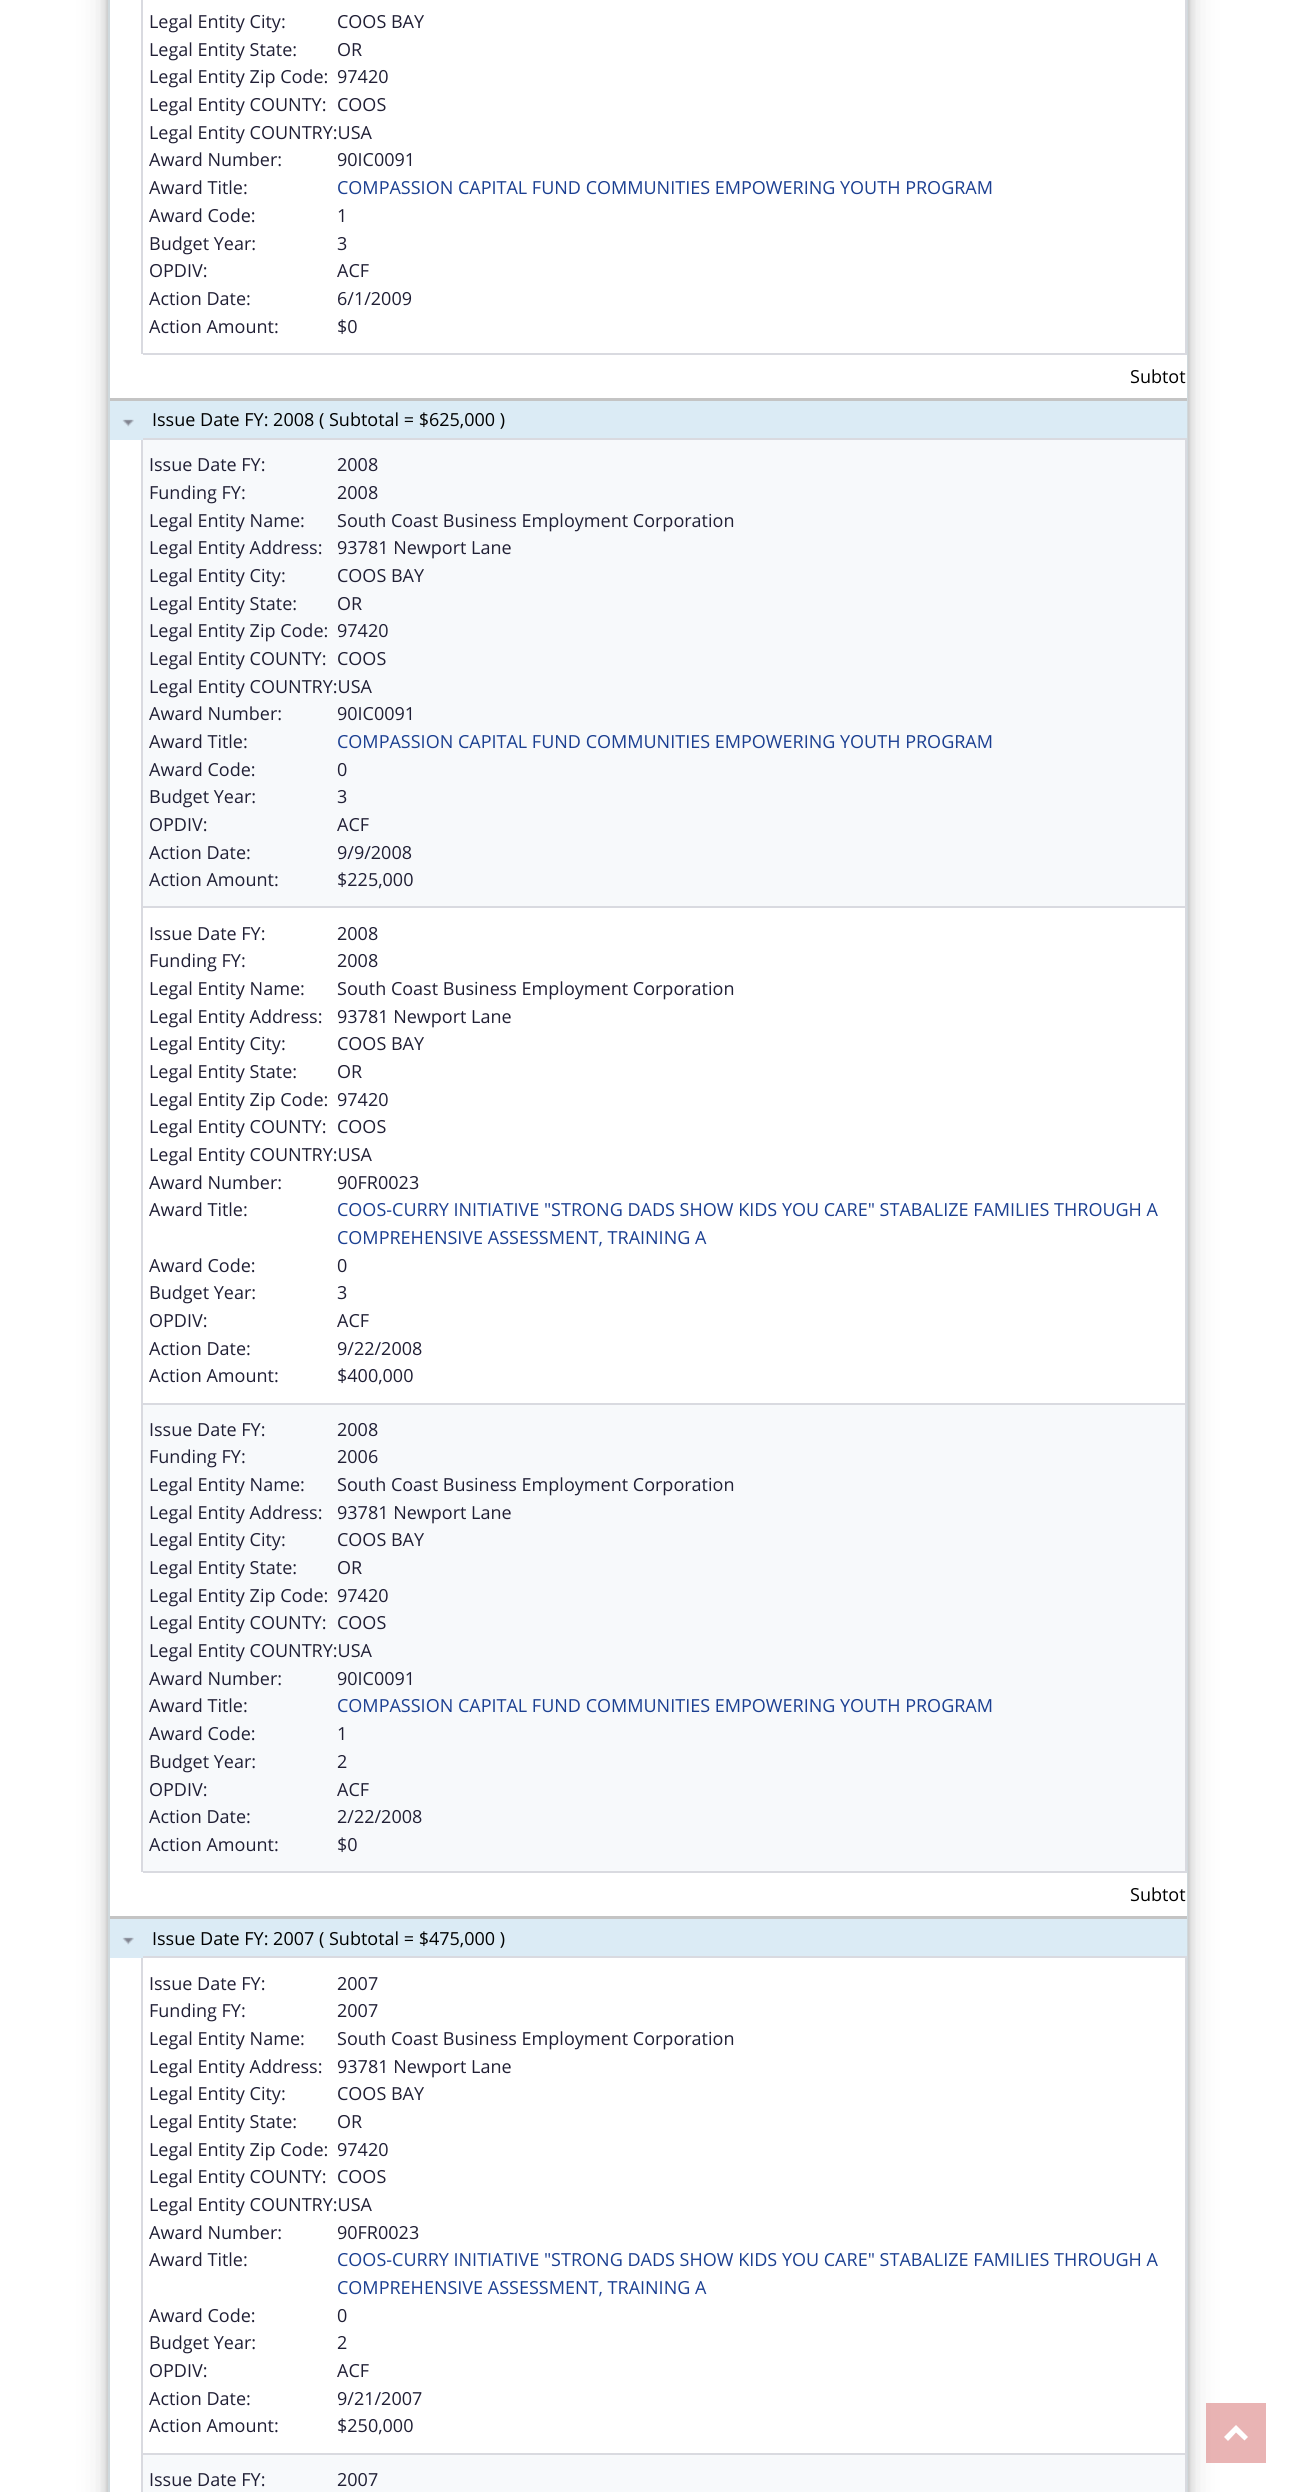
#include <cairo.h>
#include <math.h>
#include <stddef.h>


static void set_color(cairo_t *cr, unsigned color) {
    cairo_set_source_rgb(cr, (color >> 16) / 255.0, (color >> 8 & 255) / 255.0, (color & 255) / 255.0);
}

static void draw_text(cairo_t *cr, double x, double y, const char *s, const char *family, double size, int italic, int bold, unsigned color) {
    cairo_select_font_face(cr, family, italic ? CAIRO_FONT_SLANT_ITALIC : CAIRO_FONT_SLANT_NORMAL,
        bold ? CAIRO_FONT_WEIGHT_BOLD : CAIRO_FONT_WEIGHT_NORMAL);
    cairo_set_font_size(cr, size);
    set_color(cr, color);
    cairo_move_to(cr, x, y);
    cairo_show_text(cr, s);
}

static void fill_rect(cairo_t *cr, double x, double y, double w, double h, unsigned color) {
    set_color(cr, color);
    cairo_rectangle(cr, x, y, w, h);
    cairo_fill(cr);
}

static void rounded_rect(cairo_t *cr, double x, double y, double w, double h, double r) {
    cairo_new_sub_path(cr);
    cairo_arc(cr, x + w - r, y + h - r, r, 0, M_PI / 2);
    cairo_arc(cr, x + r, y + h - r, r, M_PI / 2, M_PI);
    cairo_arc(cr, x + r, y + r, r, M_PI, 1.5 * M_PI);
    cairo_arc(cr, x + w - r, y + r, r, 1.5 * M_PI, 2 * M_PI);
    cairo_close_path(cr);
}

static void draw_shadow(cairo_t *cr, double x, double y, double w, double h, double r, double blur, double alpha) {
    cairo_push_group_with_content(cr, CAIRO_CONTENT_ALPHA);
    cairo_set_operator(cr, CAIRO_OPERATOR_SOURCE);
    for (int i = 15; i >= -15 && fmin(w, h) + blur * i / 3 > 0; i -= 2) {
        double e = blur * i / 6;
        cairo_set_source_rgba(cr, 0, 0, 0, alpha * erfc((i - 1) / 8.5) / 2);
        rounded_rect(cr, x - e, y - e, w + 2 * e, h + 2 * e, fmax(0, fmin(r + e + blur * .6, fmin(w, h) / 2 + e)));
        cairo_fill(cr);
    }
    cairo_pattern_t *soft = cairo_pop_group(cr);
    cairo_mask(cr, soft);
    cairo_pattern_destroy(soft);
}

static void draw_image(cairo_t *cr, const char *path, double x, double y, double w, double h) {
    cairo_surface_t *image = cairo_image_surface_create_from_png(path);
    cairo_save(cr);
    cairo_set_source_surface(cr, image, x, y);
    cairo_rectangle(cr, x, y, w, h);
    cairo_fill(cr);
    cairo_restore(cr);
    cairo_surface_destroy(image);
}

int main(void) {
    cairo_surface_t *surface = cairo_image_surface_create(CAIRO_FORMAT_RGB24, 1295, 2492);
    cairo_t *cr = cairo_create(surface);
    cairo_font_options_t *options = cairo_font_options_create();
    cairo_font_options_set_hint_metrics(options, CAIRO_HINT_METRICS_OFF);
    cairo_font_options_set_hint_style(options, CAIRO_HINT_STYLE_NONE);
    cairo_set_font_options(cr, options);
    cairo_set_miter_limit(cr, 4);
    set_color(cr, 0xFFFFFF);
    cairo_paint(cr);
    set_color(cr, 0x000000);
    draw_shadow(cr, 108, -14, 1080, 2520, 0, 4.5, 0.23);
    draw_shadow(cr, 108, -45, 1080, 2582, 0, 15, 0.19);
    set_color(cr, 0xCFD8DC);
    cairo_new_path(cr);
    cairo_move_to(cr, 1188, -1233);
    cairo_line_to(cr, 1188, 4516);
    cairo_line_to(cr, 1186, 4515);
    cairo_line_to(cr, 1186, -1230);
    cairo_close_path(cr);
    cairo_fill(cr);
    cairo_new_path(cr);
    cairo_move_to(cr, 108, 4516);
    cairo_line_to(cr, 108, -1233);
    cairo_line_to(cr, 110, -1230);
    cairo_line_to(cr, 110, 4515);
    cairo_close_path(cr);
    cairo_fill(cr);
    fill_rect(cr, 110, 0, 1075, 354, 0xFFFFFF);
    fill_rect(cr, 141, 0, 2, 354, 0xD9DAE0);
    fill_rect(cr, 1185, 0, 2, 354, 0xD9DAE0);
    fill_rect(cr, 110, 354, 1077, 44, 0xFFFFFF);
    fill_rect(cr, 143, 353, 1044, 2, 0xD9DAE0);
    draw_text(cr, 149, 28, "Legal Entity City:", "Open Sans", 18, 0, 0, 0x201F35);
    draw_text(cr, 337, 28, "COOS BAY", "Open Sans", 18, 0, 0, 0x201F35);
    draw_text(cr, 149, 56, "Legal Entity State:", "Open Sans", 18, 0, 0, 0x201F35);
    draw_text(cr, 337, 56, "OR", "Open Sans", 18, 0, 0, 0x201F35);
    draw_text(cr, 149, 83, "Legal Entity Zip Code:", "Open Sans", 18, 0, 0, 0x201F35);
    draw_text(cr, 337, 83, "97420", "Open Sans", 18, 0, 0, 0x201F35);
    draw_text(cr, 149, 111, "Legal Entity COUNTY:", "Open Sans", 18, 0, 0, 0x201F35);
    draw_text(cr, 337, 111, "COOS", "Open Sans", 18, 0, 0, 0x201F35);
    draw_text(cr, 149, 139, "Legal Entity COUNTRY:USA", "Open Sans", 18, 0, 0, 0x201F35);
    draw_text(cr, 149, 166, "Award Number:", "Open Sans", 18, 0, 0, 0x201F35);
    draw_text(cr, 337, 166, "90IC0091", "Open Sans", 18, 0, 0, 0x201F35);
    draw_text(cr, 149, 194, "Award Title:", "Open Sans", 18, 0, 0, 0x201F35);
    draw_text(cr, 337, 194, "COMPASSION CAPITAL FUND COMMUNITIES EMPOWERING YOUTH PROGRAM", "Open Sans", 18, 0, 0, 0x1B3F91);
    draw_text(cr, 149, 222, "Award Code:", "Open Sans", 18, 0, 0, 0x201F35);
    draw_text(cr, 337, 222, "1", "Open Sans", 18, 0, 0, 0x201F35);
    draw_text(cr, 149, 250, "Budget Year:", "Open Sans", 18, 0, 0, 0x201F35);
    draw_text(cr, 337, 250, "3", "Open Sans", 18, 0, 0, 0x201F35);
    draw_text(cr, 149, 277, "OPDIV:", "Open Sans", 18, 0, 0, 0x201F35);
    draw_text(cr, 337, 277, "ACF", "Open Sans", 18, 0, 0, 0x201F35);
    draw_text(cr, 149, 305, "Action Date:", "Open Sans", 18, 0, 0, 0x201F35);
    draw_text(cr, 337, 305, "6/1/2009", "Open Sans", 18, 0, 0, 0x201F35);
    draw_text(cr, 149, 333, "Action Amount:", "Open Sans", 18, 0, 0, 0x201F35);
    draw_text(cr, 337, 333, "$0", "Open Sans", 18, 0, 0, 0x201F35);
    draw_text(cr, 1130, 383, "Subtot", "Open Sans", 18, 0, 0, 0x000000);
    fill_rect(cr, 110, 398, 1077, 3, 0xC4C4C4);
    fill_rect(cr, 110, 401, 33, 39, 0xDBEBF5);
    draw_image(cr, "assets/img1.png", 122, 419, 12, 8);
    fill_rect(cr, 143, 401, 1044, 37, 0xDBEBF5);
    fill_rect(cr, 143, 438, 1044, 2, 0xD9DAE0);
    draw_text(cr, 152, 426, "Issue Date FY: 2008 ( Subtotal = $625,000 )", "Open Sans", 18, 0, 0, 0x000000);
    fill_rect(cr, 143, 440, 1042, 466, 0xF7F9FB);
    fill_rect(cr, 110, 440, 31, 468, 0xFFFFFF);
    fill_rect(cr, 110, 908, 1075, 496, 0xFFFFFF);
    fill_rect(cr, 141, 440, 2, 1432, 0xD9DAE0);
    fill_rect(cr, 1185, 440, 2, 964, 0xD9DAE0);
    fill_rect(cr, 143, 906, 1044, 2, 0xD9DAE0);
    draw_text(cr, 149, 471, "Issue Date FY:", "Open Sans", 18, 0, 0, 0x201F35);
    draw_text(cr, 337, 471, "2008", "Open Sans", 18, 0, 0, 0x201F35);
    draw_text(cr, 149, 499, "Funding FY:", "Open Sans", 18, 0, 0, 0x201F35);
    draw_text(cr, 337, 499, "2008", "Open Sans", 18, 0, 0, 0x201F35);
    draw_text(cr, 149, 527, "Legal Entity Name:", "Open Sans", 18, 0, 0, 0x201F35);
    draw_text(cr, 337, 527, "South Coast Business Employment Corporation", "Open Sans", 18, 0, 0, 0x201F35);
    draw_text(cr, 149, 554, "Legal Entity Address:", "Open Sans", 18, 0, 0, 0x201F35);
    draw_text(cr, 337, 554, "93781 Newport Lane", "Open Sans", 18, 0, 0, 0x201F35);
    draw_text(cr, 149, 582, "Legal Entity City:", "Open Sans", 18, 0, 0, 0x201F35);
    draw_text(cr, 337, 582, "COOS BAY", "Open Sans", 18, 0, 0, 0x201F35);
    draw_text(cr, 149, 610, "Legal Entity State:", "Open Sans", 18, 0, 0, 0x201F35);
    draw_text(cr, 337, 610, "OR", "Open Sans", 18, 0, 0, 0x201F35);
    draw_text(cr, 149, 637, "Legal Entity Zip Code:", "Open Sans", 18, 0, 0, 0x201F35);
    draw_text(cr, 337, 637, "97420", "Open Sans", 18, 0, 0, 0x201F35);
    draw_text(cr, 149, 665, "Legal Entity COUNTY:", "Open Sans", 18, 0, 0, 0x201F35);
    draw_text(cr, 337, 665, "COOS", "Open Sans", 18, 0, 0, 0x201F35);
    draw_text(cr, 149, 693, "Legal Entity COUNTRY:USA", "Open Sans", 18, 0, 0, 0x201F35);
    draw_text(cr, 149, 720, "Award Number:", "Open Sans", 18, 0, 0, 0x201F35);
    draw_text(cr, 337, 720, "90IC0091", "Open Sans", 18, 0, 0, 0x201F35);
    draw_text(cr, 149, 748, "Award Title:", "Open Sans", 18, 0, 0, 0x201F35);
    draw_text(cr, 337, 748, "COMPASSION CAPITAL FUND COMMUNITIES EMPOWERING YOUTH PROGRAM", "Open Sans", 18, 0, 0, 0x1B3F91);
    draw_text(cr, 149, 776, "Award Code:", "Open Sans", 18, 0, 0, 0x201F35);
    draw_text(cr, 337, 776, "0", "Open Sans", 18, 0, 0, 0x201F35);
    draw_text(cr, 149, 803, "Budget Year:", "Open Sans", 18, 0, 0, 0x201F35);
    draw_text(cr, 337, 803, "3", "Open Sans", 18, 0, 0, 0x201F35);
    draw_text(cr, 149, 831, "OPDIV:", "Open Sans", 18, 0, 0, 0x201F35);
    draw_text(cr, 337, 831, "ACF", "Open Sans", 18, 0, 0, 0x201F35);
    draw_text(cr, 149, 859, "Action Date:", "Open Sans", 18, 0, 0, 0x201F35);
    draw_text(cr, 337, 859, "9/9/2008", "Open Sans", 18, 0, 0, 0x201F35);
    draw_text(cr, 149, 886, "Action Amount:", "Open Sans", 18, 0, 0, 0x201F35);
    draw_text(cr, 337, 886, "$225,000", "Open Sans", 18, 0, 0, 0x201F35);
    fill_rect(cr, 143, 1403, 1044, 2, 0xD9DAE0);
    draw_text(cr, 149, 940, "Issue Date FY:", "Open Sans", 18, 0, 0, 0x201F35);
    draw_text(cr, 337, 940, "2008", "Open Sans", 18, 0, 0, 0x201F35);
    draw_text(cr, 149, 967, "Funding FY:", "Open Sans", 18, 0, 0, 0x201F35);
    draw_text(cr, 337, 967, "2008", "Open Sans", 18, 0, 0, 0x201F35);
    draw_text(cr, 149, 995, "Legal Entity Name:", "Open Sans", 18, 0, 0, 0x201F35);
    draw_text(cr, 337, 995, "South Coast Business Employment Corporation", "Open Sans", 18, 0, 0, 0x201F35);
    draw_text(cr, 149, 1023, "Legal Entity Address:", "Open Sans", 18, 0, 0, 0x201F35);
    draw_text(cr, 337, 1023, "93781 Newport Lane", "Open Sans", 18, 0, 0, 0x201F35);
    draw_text(cr, 149, 1050, "Legal Entity City:", "Open Sans", 18, 0, 0, 0x201F35);
    draw_text(cr, 337, 1050, "COOS BAY", "Open Sans", 18, 0, 0, 0x201F35);
    draw_text(cr, 149, 1078, "Legal Entity State:", "Open Sans", 18, 0, 0, 0x201F35);
    draw_text(cr, 337, 1078, "OR", "Open Sans", 18, 0, 0, 0x201F35);
    draw_text(cr, 149, 1106, "Legal Entity Zip Code:", "Open Sans", 18, 0, 0, 0x201F35);
    draw_text(cr, 337, 1106, "97420", "Open Sans", 18, 0, 0, 0x201F35);
    draw_text(cr, 149, 1133, "Legal Entity COUNTY:", "Open Sans", 18, 0, 0, 0x201F35);
    draw_text(cr, 337, 1133, "COOS", "Open Sans", 18, 0, 0, 0x201F35);
    draw_text(cr, 149, 1161, "Legal Entity COUNTRY:USA", "Open Sans", 18, 0, 0, 0x201F35);
    draw_text(cr, 149, 1189, "Award Number:", "Open Sans", 18, 0, 0, 0x201F35);
    draw_text(cr, 337, 1189, "90FR0023", "Open Sans", 18, 0, 0, 0x201F35);
    draw_text(cr, 149, 1216, "Award Title:", "Open Sans", 18, 0, 0, 0x201F35);
    draw_text(cr, 337, 1216, "COOS-CURRY INITIATIVE \"STRONG DADS SHOW KIDS YOU CARE\" STABALIZE FAMILIES THROUGH A", "Open Sans", 18, 0, 0, 0x1B3F91);
    draw_text(cr, 337, 1244, "COMPREHENSIVE ASSESSMENT, TRAINING A", "Open Sans", 18, 0, 0, 0x1B3F91);
    draw_text(cr, 149, 1272, "Award Code:", "Open Sans", 18, 0, 0, 0x201F35);
    draw_text(cr, 337, 1272, "0", "Open Sans", 18, 0, 0, 0x201F35);
    draw_text(cr, 149, 1299, "Budget Year:", "Open Sans", 18, 0, 0, 0x201F35);
    draw_text(cr, 337, 1299, "3", "Open Sans", 18, 0, 0, 0x201F35);
    draw_text(cr, 149, 1327, "OPDIV:", "Open Sans", 18, 0, 0, 0x201F35);
    draw_text(cr, 337, 1327, "ACF", "Open Sans", 18, 0, 0, 0x201F35);
    draw_text(cr, 149, 1355, "Action Date:", "Open Sans", 18, 0, 0, 0x201F35);
    draw_text(cr, 337, 1355, "9/22/2008", "Open Sans", 18, 0, 0, 0x201F35);
    draw_text(cr, 149, 1382, "Action Amount:", "Open Sans", 18, 0, 0, 0x201F35);
    draw_text(cr, 337, 1382, "$400,000", "Open Sans", 18, 0, 0, 0x201F35);
    fill_rect(cr, 143, 1405, 1042, 466, 0xF7F9FB);
    fill_rect(cr, 110, 1404, 31, 468, 0xFFFFFF);
    fill_rect(cr, 1185, 1404, 2, 468, 0xD9DAE0);
    fill_rect(cr, 110, 1872, 1077, 44, 0xFFFFFF);
    fill_rect(cr, 143, 1871, 1044, 2, 0xD9DAE0);
    draw_text(cr, 149, 1436, "Issue Date FY:", "Open Sans", 18, 0, 0, 0x201F35);
    draw_text(cr, 337, 1436, "2008", "Open Sans", 18, 0, 0, 0x201F35);
    draw_text(cr, 149, 1463, "Funding FY:", "Open Sans", 18, 0, 0, 0x201F35);
    draw_text(cr, 337, 1463, "2006", "Open Sans", 18, 0, 0, 0x201F35);
    draw_text(cr, 149, 1491, "Legal Entity Name:", "Open Sans", 18, 0, 0, 0x201F35);
    draw_text(cr, 337, 1491, "South Coast Business Employment Corporation", "Open Sans", 18, 0, 0, 0x201F35);
    draw_text(cr, 149, 1519, "Legal Entity Address:", "Open Sans", 18, 0, 0, 0x201F35);
    draw_text(cr, 337, 1519, "93781 Newport Lane", "Open Sans", 18, 0, 0, 0x201F35);
    draw_text(cr, 149, 1546, "Legal Entity City:", "Open Sans", 18, 0, 0, 0x201F35);
    draw_text(cr, 337, 1546, "COOS BAY", "Open Sans", 18, 0, 0, 0x201F35);
    draw_text(cr, 149, 1574, "Legal Entity State:", "Open Sans", 18, 0, 0, 0x201F35);
    draw_text(cr, 337, 1574, "OR", "Open Sans", 18, 0, 0, 0x201F35);
    draw_text(cr, 149, 1602, "Legal Entity Zip Code:", "Open Sans", 18, 0, 0, 0x201F35);
    draw_text(cr, 337, 1602, "97420", "Open Sans", 18, 0, 0, 0x201F35);
    draw_text(cr, 149, 1629, "Legal Entity COUNTY:", "Open Sans", 18, 0, 0, 0x201F35);
    draw_text(cr, 337, 1629, "COOS", "Open Sans", 18, 0, 0, 0x201F35);
    draw_text(cr, 149, 1657, "Legal Entity COUNTRY:USA", "Open Sans", 18, 0, 0, 0x201F35);
    draw_text(cr, 149, 1685, "Award Number:", "Open Sans", 18, 0, 0, 0x201F35);
    draw_text(cr, 337, 1685, "90IC0091", "Open Sans", 18, 0, 0, 0x201F35);
    draw_text(cr, 149, 1712, "Award Title:", "Open Sans", 18, 0, 0, 0x201F35);
    draw_text(cr, 337, 1712, "COMPASSION CAPITAL FUND COMMUNITIES EMPOWERING YOUTH PROGRAM", "Open Sans", 18, 0, 0, 0x1B3F91);
    draw_text(cr, 149, 1740, "Award Code:", "Open Sans", 18, 0, 0, 0x201F35);
    draw_text(cr, 337, 1740, "1", "Open Sans", 18, 0, 0, 0x201F35);
    draw_text(cr, 149, 1768, "Budget Year:", "Open Sans", 18, 0, 0, 0x201F35);
    draw_text(cr, 337, 1768, "2", "Open Sans", 18, 0, 0, 0x201F35);
    draw_text(cr, 149, 1796, "OPDIV:", "Open Sans", 18, 0, 0, 0x201F35);
    draw_text(cr, 337, 1796, "ACF", "Open Sans", 18, 0, 0, 0x201F35);
    draw_text(cr, 149, 1823, "Action Date:", "Open Sans", 18, 0, 0, 0x201F35);
    draw_text(cr, 337, 1823, "2/22/2008", "Open Sans", 18, 0, 0, 0x201F35);
    draw_text(cr, 149, 1851, "Action Amount:", "Open Sans", 18, 0, 0, 0x201F35);
    draw_text(cr, 337, 1851, "$0", "Open Sans", 18, 0, 0, 0x201F35);
    draw_text(cr, 1130, 1901, "Subtot", "Open Sans", 18, 0, 0, 0x000000);
    fill_rect(cr, 110, 1916, 1077, 3, 0xC4C4C4);
    fill_rect(cr, 110, 1919, 33, 39, 0xDBEBF5);
    draw_image(cr, "assets/img1.png", 122, 1937, 12, 8);
    fill_rect(cr, 143, 1919, 1044, 37, 0xDBEBF5);
    fill_rect(cr, 143, 1956, 1044, 2, 0xD9DAE0);
    draw_text(cr, 152, 1945, "Issue Date FY: 2007 ( Subtotal = $475,000 )", "Open Sans", 18, 0, 0, 0x000000);
    fill_rect(cr, 110, 1958, 1075, 496, 0xFFFFFF);
    fill_rect(cr, 141, 1958, 2, 534, 0xD9DAE0);
    fill_rect(cr, 1185, 1958, 2, 496, 0xD9DAE0);
    fill_rect(cr, 143, 2453, 1044, 2, 0xD9DAE0);
    draw_text(cr, 149, 1990, "Issue Date FY:", "Open Sans", 18, 0, 0, 0x201F35);
    draw_text(cr, 337, 1990, "2007", "Open Sans", 18, 0, 0, 0x201F35);
    draw_text(cr, 149, 2017, "Funding FY:", "Open Sans", 18, 0, 0, 0x201F35);
    draw_text(cr, 337, 2017, "2007", "Open Sans", 18, 0, 0, 0x201F35);
    draw_text(cr, 149, 2045, "Legal Entity Name:", "Open Sans", 18, 0, 0, 0x201F35);
    draw_text(cr, 337, 2045, "South Coast Business Employment Corporation", "Open Sans", 18, 0, 0, 0x201F35);
    draw_text(cr, 149, 2073, "Legal Entity Address:", "Open Sans", 18, 0, 0, 0x201F35);
    draw_text(cr, 337, 2073, "93781 Newport Lane", "Open Sans", 18, 0, 0, 0x201F35);
    draw_text(cr, 149, 2100, "Legal Entity City:", "Open Sans", 18, 0, 0, 0x201F35);
    draw_text(cr, 337, 2100, "COOS BAY", "Open Sans", 18, 0, 0, 0x201F35);
    draw_text(cr, 149, 2128, "Legal Entity State:", "Open Sans", 18, 0, 0, 0x201F35);
    draw_text(cr, 337, 2128, "OR", "Open Sans", 18, 0, 0, 0x201F35);
    draw_text(cr, 149, 2156, "Legal Entity Zip Code:", "Open Sans", 18, 0, 0, 0x201F35);
    draw_text(cr, 337, 2156, "97420", "Open Sans", 18, 0, 0, 0x201F35);
    draw_text(cr, 149, 2183, "Legal Entity COUNTY:", "Open Sans", 18, 0, 0, 0x201F35);
    draw_text(cr, 337, 2183, "COOS", "Open Sans", 18, 0, 0, 0x201F35);
    draw_text(cr, 149, 2211, "Legal Entity COUNTRY:USA", "Open Sans", 18, 0, 0, 0x201F35);
    draw_text(cr, 149, 2239, "Award Number:", "Open Sans", 18, 0, 0, 0x201F35);
    draw_text(cr, 337, 2239, "90FR0023", "Open Sans", 18, 0, 0, 0x201F35);
    draw_text(cr, 149, 2266, "Award Title:", "Open Sans", 18, 0, 0, 0x201F35);
    draw_text(cr, 337, 2266, "COOS-CURRY INITIATIVE \"STRONG DADS SHOW KIDS YOU CARE\" STABALIZE FAMILIES THROUGH A", "Open Sans", 18, 0, 0, 0x1B3F91);
    draw_text(cr, 337, 2294, "COMPREHENSIVE ASSESSMENT, TRAINING A", "Open Sans", 18, 0, 0, 0x1B3F91);
    draw_text(cr, 149, 2322, "Award Code:", "Open Sans", 18, 0, 0, 0x201F35);
    draw_text(cr, 337, 2322, "0", "Open Sans", 18, 0, 0, 0x201F35);
    draw_text(cr, 149, 2349, "Budget Year:", "Open Sans", 18, 0, 0, 0x201F35);
    draw_text(cr, 337, 2349, "2", "Open Sans", 18, 0, 0, 0x201F35);
    draw_text(cr, 149, 2377, "OPDIV:", "Open Sans", 18, 0, 0, 0x201F35);
    draw_text(cr, 337, 2377, "ACF", "Open Sans", 18, 0, 0, 0x201F35);
    draw_text(cr, 149, 2405, "Action Date:", "Open Sans", 18, 0, 0, 0x201F35);
    draw_text(cr, 337, 2405, "9/21/2007", "Open Sans", 18, 0, 0, 0x201F35);
    draw_text(cr, 149, 2432, "Action Amount:", "Open Sans", 18, 0, 0, 0x201F35);
    draw_text(cr, 337, 2432, "$250,000", "Open Sans", 18, 0, 0, 0x201F35);
    fill_rect(cr, 143, 2455, 1042, 37, 0xF7F9FB);
    fill_rect(cr, 110, 2454, 31, 38, 0xFFFFFF);
    fill_rect(cr, 1185, 2454, 2, 38, 0xD9DAE0);
    draw_text(cr, 149, 2486, "Issue Date FY:", "Open Sans", 18, 0, 0, 0x201F35);
    draw_text(cr, 337, 2486, "2007", "Open Sans", 18, 0, 0, 0x201F35);
    cairo_set_source_rgba(cr, 0.788, 0.267, 0.271, 0.4);
    cairo_rectangle(cr, 1206, 2403, 60, 60);
    cairo_fill(cr);
    set_color(cr, 0xFFFFFF);
    cairo_new_path(cr);
    cairo_move_to(cr, 1236, 2425);
    cairo_line_to(cr, 1248, 2437);
    cairo_line_to(cr, 1244.5, 2440.5);
    cairo_line_to(cr, 1236, 2432.5);
    cairo_line_to(cr, 1228, 2441);
    cairo_line_to(cr, 1224, 2437);
    cairo_close_path(cr);
    cairo_fill(cr);
    cairo_surface_write_to_png(surface, "output.png");
    cairo_font_options_destroy(options);
    cairo_destroy(cr);
    cairo_surface_destroy(surface);
    return 0;
}
